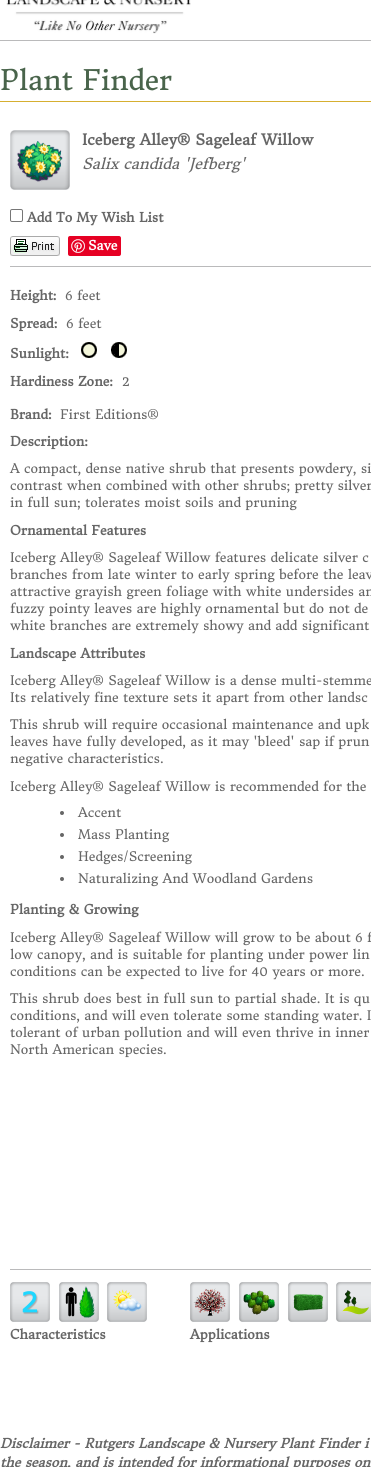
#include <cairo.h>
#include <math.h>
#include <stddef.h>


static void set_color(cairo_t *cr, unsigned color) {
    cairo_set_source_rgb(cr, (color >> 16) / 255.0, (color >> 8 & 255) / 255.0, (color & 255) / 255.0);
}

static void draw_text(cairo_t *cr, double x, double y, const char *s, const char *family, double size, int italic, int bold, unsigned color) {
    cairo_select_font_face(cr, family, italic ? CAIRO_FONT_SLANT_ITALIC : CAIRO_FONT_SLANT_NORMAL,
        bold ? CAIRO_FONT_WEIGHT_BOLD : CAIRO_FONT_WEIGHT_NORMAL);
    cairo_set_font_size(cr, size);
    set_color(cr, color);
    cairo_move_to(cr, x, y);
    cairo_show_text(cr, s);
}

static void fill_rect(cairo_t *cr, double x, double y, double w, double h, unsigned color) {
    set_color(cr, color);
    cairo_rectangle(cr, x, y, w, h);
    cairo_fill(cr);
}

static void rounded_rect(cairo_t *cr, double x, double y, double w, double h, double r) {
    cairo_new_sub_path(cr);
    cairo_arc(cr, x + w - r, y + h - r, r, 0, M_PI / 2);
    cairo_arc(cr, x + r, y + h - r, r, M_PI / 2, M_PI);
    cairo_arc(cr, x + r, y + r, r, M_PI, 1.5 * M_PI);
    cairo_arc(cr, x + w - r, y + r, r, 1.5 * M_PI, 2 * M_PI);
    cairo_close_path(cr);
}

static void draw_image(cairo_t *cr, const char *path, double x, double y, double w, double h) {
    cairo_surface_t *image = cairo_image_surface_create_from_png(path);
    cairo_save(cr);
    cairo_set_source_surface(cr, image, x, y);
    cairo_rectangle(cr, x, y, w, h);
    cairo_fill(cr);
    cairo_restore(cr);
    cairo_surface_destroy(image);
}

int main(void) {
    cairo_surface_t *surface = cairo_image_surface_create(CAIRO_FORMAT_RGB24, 371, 1467);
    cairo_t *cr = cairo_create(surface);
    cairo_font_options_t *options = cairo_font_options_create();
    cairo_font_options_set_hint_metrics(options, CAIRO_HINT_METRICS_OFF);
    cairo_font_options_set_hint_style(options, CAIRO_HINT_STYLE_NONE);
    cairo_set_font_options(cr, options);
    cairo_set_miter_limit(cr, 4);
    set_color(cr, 0xFFFFFF);
    cairo_paint(cr);
    fill_rect(cr, 0, 40, 371, 1, 0xBABABB);
    draw_image(cr, "assets/img1.png", 6, 0, 185, 34);
    fill_rect(cr, 0, 101, 371, 1, 0xD6AF30);
    draw_text(cr, 0, 90, "Plant Finder", "Donegal One", 28, 0, 0, 0x49644B);
    draw_image(cr, "assets/img2.png", 10, 130, 60, 60);
    draw_text(cr, 82, 145, "Iceberg Alley® Sageleaf Willow", "Donegal One", 15, 0, 1, 0x666666);
    draw_text(cr, 82, 169, "Salix candida 'Jefberg'", "Donegal One", 15, 1, 0, 0x666666);
    rounded_rect(cr, 10.5, 209.5, 12, 12, 1.5);
    set_color(cr, 0x767676);
    cairo_set_line_width(cr, 1);
    cairo_stroke(cr);
    draw_text(cr, 27, 222, "Add To My Wish List", "Donegal One", 13, 0, 1, 0x666666);
    draw_image(cr, "assets/img3.png", 10, 236, 50, 20);
    set_color(cr, 0xE60023);
    rounded_rect(cr, 68, 236, 53, 20, 2);
    cairo_fill(cr);
    draw_image(cr, "assets/img4.png", 71, 239, 14, 14);
    draw_text(cr, 88, 250, "Save", "Donegal One", 13, 0, 1, 0xFFFFFF);
    fill_rect(cr, 10, 266, 361, 1, 0xBABABB);
    draw_text(cr, 10, 300, "Height:", "Donegal One", 13, 0, 1, 0x666666);
    draw_text(cr, 65, 300, "6 feet", "Donegal One", 13, 0, 0, 0x666666);
    draw_text(cr, 10, 328, "Spread:", "Donegal One", 13, 0, 1, 0x666666);
    draw_text(cr, 66, 328, "6 feet", "Donegal One", 13, 0, 0, 0x666666);
    draw_text(cr, 10, 358, "Sunlight:", "Donegal One", 13, 0, 1, 0x666666);
    draw_image(cr, "assets/img5.png", 81, 342, 16, 16);
    draw_image(cr, "assets/img6.png", 111, 342, 16, 16);
    draw_text(cr, 10, 386, "Hardiness Zone:", "Donegal One", 13, 0, 1, 0x666666);
    draw_text(cr, 122, 386, "2", "Donegal One", 13, 0, 0, 0x666666);
    draw_text(cr, 10, 419, "Brand:", "Donegal One", 13, 0, 1, 0x666666);
    draw_text(cr, 60, 419, "First Editions®", "Donegal One", 13, 0, 0, 0x666666);
    draw_text(cr, 10, 446, "Description:", "Donegal One", 13, 0, 1, 0x666666);
    draw_text(cr, 10, 473, "A compact, dense native shrub that presents powdery, si", "Donegal One", 13, 0, 0, 0x666666);
    draw_text(cr, 10, 490, "contrast when combined with other shrubs; pretty silver", "Donegal One", 13, 0, 0, 0x666666);
    draw_text(cr, 10, 507, "in full sun; tolerates moist soils and pruning", "Donegal One", 13, 0, 0, 0x666666);
    draw_text(cr, 10, 535, "Ornamental Features", "Donegal One", 13, 0, 1, 0x666666);
    draw_text(cr, 10, 562, "Iceberg Alley® Sageleaf Willow features delicate silver c", "Donegal One", 13, 0, 0, 0x666666);
    draw_text(cr, 10, 579, "branches from late winter to early spring before the leav", "Donegal One", 13, 0, 0, 0x666666);
    draw_text(cr, 10, 596, "attractive grayish green foliage with white undersides an", "Donegal One", 13, 0, 0, 0x666666);
    draw_text(cr, 10, 613, "fuzzy pointy leaves are highly ornamental but do not de", "Donegal One", 13, 0, 0, 0x666666);
    draw_text(cr, 10, 630, "white branches are extremely showy and add significant", "Donegal One", 13, 0, 0, 0x666666);
    draw_text(cr, 10, 658, "Landscape Attributes", "Donegal One", 13, 0, 1, 0x666666);
    draw_text(cr, 10, 685, "Iceberg Alley® Sageleaf Willow is a dense multi-stemme", "Donegal One", 13, 0, 0, 0x666666);
    draw_text(cr, 10, 702, "Its relatively fine texture sets it apart from other landsc", "Donegal One", 13, 0, 0, 0x666666);
    draw_text(cr, 10, 729, "This shrub will require occasional maintenance and upk", "Donegal One", 13, 0, 0, 0x666666);
    draw_text(cr, 10, 746, "leaves have fully developed, as it may 'bleed' sap if prun", "Donegal One", 13, 0, 0, 0x666666);
    draw_text(cr, 10, 763, "negative characteristics.", "Donegal One", 13, 0, 0, 0x666666);
    draw_text(cr, 10, 791, "Iceberg Alley® Sageleaf Willow is recommended for the", "Donegal One", 13, 0, 0, 0x666666);
    cairo_new_path(cr);
    cairo_arc(cr, 62, 813, 2, 0, 2 * M_PI);
    cairo_fill(cr);
    draw_text(cr, 78, 817, "Accent", "Donegal One", 13, 0, 0, 0x666666);
    cairo_new_path(cr);
    cairo_arc(cr, 62, 835, 2, 0, 2 * M_PI);
    cairo_fill(cr);
    draw_text(cr, 78, 839, "Mass Planting", "Donegal One", 13, 0, 0, 0x666666);
    cairo_new_path(cr);
    cairo_arc(cr, 62, 857, 2, 0, 2 * M_PI);
    cairo_fill(cr);
    draw_text(cr, 78, 861, "Hedges/Screening", "Donegal One", 13, 0, 0, 0x666666);
    cairo_new_path(cr);
    cairo_arc(cr, 62, 879, 2, 0, 2 * M_PI);
    cairo_fill(cr);
    draw_text(cr, 78, 883, "Naturalizing And Woodland Gardens", "Donegal One", 13, 0, 0, 0x666666);
    draw_text(cr, 10, 914, "Planting & Growing", "Donegal One", 13, 0, 1, 0x666666);
    draw_text(cr, 10, 942, "Iceberg Alley® Sageleaf Willow will grow to be about 6 f", "Donegal One", 13, 0, 0, 0x666666);
    draw_text(cr, 10, 959, "low canopy, and is suitable for planting under power lin", "Donegal One", 13, 0, 0, 0x666666);
    draw_text(cr, 10, 976, "conditions can be expected to live for 40 years or more.", "Donegal One", 13, 0, 0, 0x666666);
    draw_text(cr, 10, 1003, "This shrub does best in full sun to partial shade. It is qu", "Donegal One", 13, 0, 0, 0x666666);
    draw_text(cr, 10, 1020, "conditions, and will even tolerate some standing water. I", "Donegal One", 13, 0, 0, 0x666666);
    draw_text(cr, 10, 1037, "tolerant of urban pollution and will even thrive in inner", "Donegal One", 13, 0, 0, 0x666666);
    draw_text(cr, 10, 1054, "North American species.", "Donegal One", 13, 0, 0, 0x666666);
    fill_rect(cr, 10, 1269, 361, 1, 0xBABABB);
    draw_image(cr, "assets/img7.png", 10, 1282, 40, 40);
    draw_image(cr, "assets/img8.png", 59, 1282, 40, 40);
    draw_image(cr, "assets/img9.png", 107, 1282, 40, 40);
    draw_text(cr, 10, 1339, "Characteristics", "Donegal One", 13, 0, 1, 0x666666);
    draw_image(cr, "assets/img10.png", 190, 1282, 40, 40);
    draw_image(cr, "assets/img11.png", 239, 1282, 40, 40);
    draw_image(cr, "assets/img12.png", 288, 1282, 40, 40);
    draw_image(cr, "assets/img13.png", 336, 1282, 35, 40);
    draw_text(cr, 190, 1339, "Applications", "Donegal One", 13, 0, 1, 0x666666);
    draw_text(cr, 0, 1448, "Disclaimer - Rutgers Landscape & Nursery Plant Finder i", "Donegal One", 13, 1, 1, 0x666666);
    draw_text(cr, 0, 1467, "the season, and is intended for informational purposes on", "Donegal One", 13, 1, 1, 0x666666);
    cairo_surface_write_to_png(surface, "output.png");
    cairo_font_options_destroy(options);
    cairo_destroy(cr);
    cairo_surface_destroy(surface);
    return 0;
}
